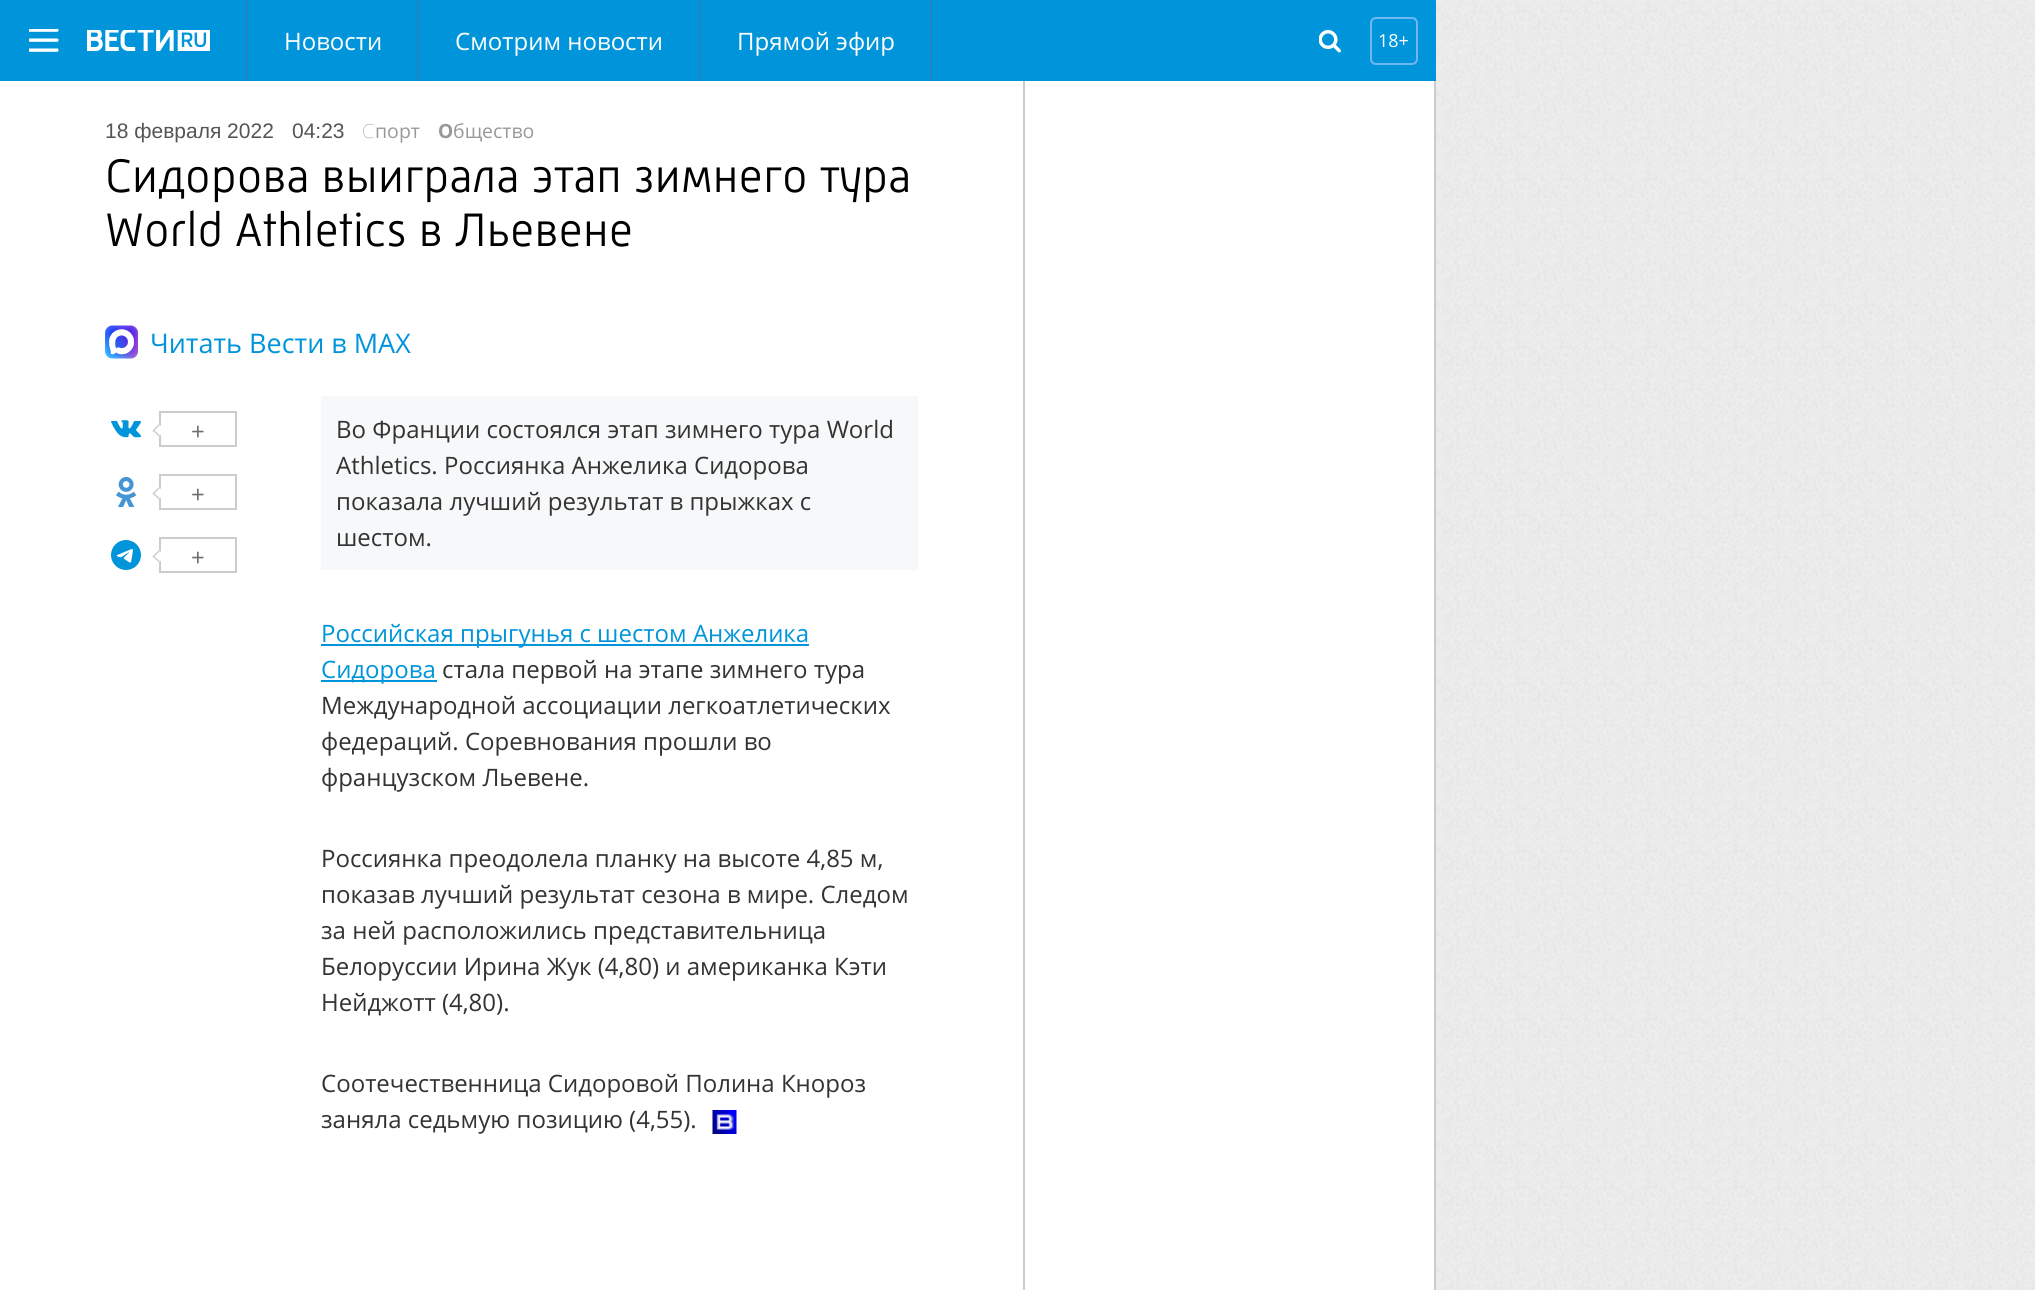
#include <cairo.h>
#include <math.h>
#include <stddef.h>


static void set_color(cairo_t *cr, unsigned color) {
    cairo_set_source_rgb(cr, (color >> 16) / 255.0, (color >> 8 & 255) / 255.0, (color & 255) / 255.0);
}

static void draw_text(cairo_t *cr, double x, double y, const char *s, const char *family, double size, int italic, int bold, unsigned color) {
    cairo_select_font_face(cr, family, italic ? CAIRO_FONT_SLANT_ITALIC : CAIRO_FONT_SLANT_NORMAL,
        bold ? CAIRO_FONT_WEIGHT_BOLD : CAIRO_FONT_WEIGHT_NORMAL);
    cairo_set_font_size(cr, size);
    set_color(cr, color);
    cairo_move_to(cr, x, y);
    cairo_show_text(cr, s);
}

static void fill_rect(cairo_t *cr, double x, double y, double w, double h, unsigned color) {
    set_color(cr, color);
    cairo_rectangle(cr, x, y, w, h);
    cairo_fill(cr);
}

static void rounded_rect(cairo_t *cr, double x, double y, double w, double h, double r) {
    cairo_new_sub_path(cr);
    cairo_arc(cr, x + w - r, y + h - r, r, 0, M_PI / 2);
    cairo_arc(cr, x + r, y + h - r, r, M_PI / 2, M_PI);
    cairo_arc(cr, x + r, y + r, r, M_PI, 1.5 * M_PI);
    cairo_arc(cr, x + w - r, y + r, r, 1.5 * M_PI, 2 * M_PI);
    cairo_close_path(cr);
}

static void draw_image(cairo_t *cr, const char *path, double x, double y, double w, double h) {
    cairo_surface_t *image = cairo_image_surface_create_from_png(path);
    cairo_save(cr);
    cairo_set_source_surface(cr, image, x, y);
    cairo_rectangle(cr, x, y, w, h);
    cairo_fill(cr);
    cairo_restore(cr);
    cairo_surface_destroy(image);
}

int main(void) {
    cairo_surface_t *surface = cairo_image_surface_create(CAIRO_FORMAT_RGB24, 2035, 1290);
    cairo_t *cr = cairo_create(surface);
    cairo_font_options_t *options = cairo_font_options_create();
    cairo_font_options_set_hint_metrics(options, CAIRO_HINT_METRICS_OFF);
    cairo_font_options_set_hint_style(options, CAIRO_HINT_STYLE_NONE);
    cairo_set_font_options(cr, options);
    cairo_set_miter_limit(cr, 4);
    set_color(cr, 0xFFFFFF);
    cairo_paint(cr);
    draw_image(cr, "assets/img1.png", 1436, 0, 599, 1290);
    fill_rect(cr, 0, 0, 1436, 81, 0x0095DA);
    draw_image(cr, "assets/img2.png", 29, 29, 30, 23);
    draw_image(cr, "assets/img3.png", 87, 30, 123, 21);
    fill_rect(cr, 417, 0, 2, 81, 0x2483C5);
    fill_rect(cr, 246, 0, 2, 81, 0x2483C5);
    draw_text(cr, 284, 50, "Новости", "Open Sans", 24, 0, 0, 0xFFFFFF);
    fill_rect(cr, 699, 0, 2, 81, 0x2483C5);
    draw_text(cr, 455, 50, "Смотрим новости", "Open Sans", 24, 0, 0, 0xFFFFFF);
    fill_rect(cr, 930, 0, 2, 81, 0x2483C5);
    draw_text(cr, 737, 50, "Прямой эфир", "Open Sans", 24, 0, 0, 0xFFFFFF);
    draw_image(cr, "assets/img4.png", 1319, 30, 22, 23);
    rounded_rect(cr, 1371, 18, 46, 46, 5);
    set_color(cr, 0x70B6F2);
    cairo_stroke(cr);
    draw_text(cr, 1378, 47, "18+", "Open Sans", 18, 0, 0, 0xFFFFFF);
    fill_rect(cr, 1434, 81, 2, 1209, 0xCCCCCC);
    fill_rect(cr, 1023, 81, 2, 1209, 0xCCCCCC);
    draw_text(cr, 105, 138, "18 февраля 2022", "Arimo", 21, 0, 0, 0x555555);
    draw_text(cr, 292, 138, "04:23", "Arimo", 21, 0, 0, 0x555555);
    draw_text(cr, 362, 138, "С", "Noto Sans Thin", 19.5, 0, 0, 0x999999);
    draw_text(cr, 375, 138, "порт", "Open Sans", 19.5, 0, 0, 0x999999);
    draw_text(cr, 438, 138, "О", "Noto Sans", 19.5, 0, 1, 0x999999);
    draw_text(cr, 453, 138, "бщество", "Open Sans", 19.5, 0, 0, 0x999999);
    draw_text(cr, 105, 192, "Сидорова выиграла этап зимнего тура", "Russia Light", 48, 0, 0, 0x000000);
    draw_text(cr, 105, 246, "World Athletics в Льевене", "Russia Light", 48, 0, 0, 0x000000);
    draw_image(cr, "assets/img5.png", 105, 325, 33, 34);
    draw_text(cr, 150, 353, "Читать Вести в MAX", "Open Sans", 27, 0, 0, 0x0095DA);
    draw_image(cr, "assets/img6.png", 111, 420, 30, 18);
    cairo_rectangle(cr, 160, 412, 76, 34);
    set_color(cr, 0xCCCCCC);
    cairo_stroke(cr);
    set_color(cr, 0xFFFFFF);
    cairo_new_path(cr);
    cairo_move_to(cr, 152.5, 430.5);
    cairo_line_to(cr, 159, 424);
    cairo_line_to(cr, 165, 430.5);
    cairo_line_to(cr, 159, 436.5);
    cairo_close_path(cr);
    cairo_fill(cr);
    set_color(cr, 0xCCCCCC);
    cairo_new_path(cr);
    cairo_move_to(cr, 152.5, 430.5);
    cairo_line_to(cr, 159, 424);
    cairo_line_to(cr, 160, 425);
    cairo_line_to(cr, 153.5, 431.5);
    cairo_close_path(cr);
    cairo_fill(cr);
    cairo_new_path(cr);
    cairo_move_to(cr, 152.5, 430.5);
    cairo_line_to(cr, 153.5, 429.5);
    cairo_line_to(cr, 160, 435.5);
    cairo_line_to(cr, 159, 436.5);
    cairo_close_path(cr);
    cairo_fill(cr);
    draw_text(cr, 191, 440, "+", "Open Sans", 24, 0, 0, 0x6D6D6D);
    draw_image(cr, "assets/img7.png", 116, 477, 21, 30);
    cairo_rectangle(cr, 160, 475, 76, 34);
    set_color(cr, 0xCCCCCC);
    cairo_stroke(cr);
    set_color(cr, 0xFFFFFF);
    cairo_new_path(cr);
    cairo_move_to(cr, 152.5, 493.5);
    cairo_line_to(cr, 159, 487);
    cairo_line_to(cr, 165, 493.5);
    cairo_line_to(cr, 159, 499.5);
    cairo_close_path(cr);
    cairo_fill(cr);
    set_color(cr, 0xCCCCCC);
    cairo_new_path(cr);
    cairo_move_to(cr, 152.5, 493.5);
    cairo_line_to(cr, 159, 487);
    cairo_line_to(cr, 160, 488);
    cairo_line_to(cr, 153.5, 494.5);
    cairo_close_path(cr);
    cairo_fill(cr);
    cairo_new_path(cr);
    cairo_move_to(cr, 152.5, 493.5);
    cairo_line_to(cr, 153.5, 492.5);
    cairo_line_to(cr, 160, 498.5);
    cairo_line_to(cr, 159, 499.5);
    cairo_close_path(cr);
    cairo_fill(cr);
    draw_text(cr, 191, 503, "+", "Open Sans", 24, 0, 0, 0x6D6D6D);
    draw_image(cr, "assets/img8.png", 111, 540, 30, 30);
    cairo_rectangle(cr, 160, 538, 76, 34);
    set_color(cr, 0xCCCCCC);
    cairo_stroke(cr);
    set_color(cr, 0xFFFFFF);
    cairo_new_path(cr);
    cairo_move_to(cr, 152.5, 556.5);
    cairo_line_to(cr, 159, 550);
    cairo_line_to(cr, 165, 556.5);
    cairo_line_to(cr, 159, 562.5);
    cairo_close_path(cr);
    cairo_fill(cr);
    set_color(cr, 0xCCCCCC);
    cairo_new_path(cr);
    cairo_move_to(cr, 152.5, 556.5);
    cairo_line_to(cr, 159, 550);
    cairo_line_to(cr, 160, 551);
    cairo_line_to(cr, 153.5, 557.5);
    cairo_close_path(cr);
    cairo_fill(cr);
    cairo_new_path(cr);
    cairo_move_to(cr, 152.5, 556.5);
    cairo_line_to(cr, 153.5, 555.5);
    cairo_line_to(cr, 160, 561.5);
    cairo_line_to(cr, 159, 562.5);
    cairo_close_path(cr);
    cairo_fill(cr);
    draw_text(cr, 191, 566, "+", "Open Sans", 24, 0, 0, 0x6D6D6D);
    fill_rect(cr, 321, 396, 597, 174, 0xF7F8F9);
    draw_text(cr, 336, 438, "Во Франции состоялся этап зимнего тура World", "Open Sans", 24, 0, 0, 0x333333);
    draw_text(cr, 336, 474, "Athletics. Россиянка Анжелика Сидорова", "Open Sans", 24, 0, 0, 0x333333);
    draw_text(cr, 336, 510, "показала лучший результат в прыжках с", "Open Sans", 24, 0, 0, 0x333333);
    draw_text(cr, 336, 546, "шестом.", "Open Sans", 24, 0, 0, 0x333333);
    fill_rect(cr, 321, 644, 488, 2, 0x0095DA);
    draw_text(cr, 321, 642, "Российская прыгунья с шестом Анжелика", "Open Sans", 24, 0, 0, 0x0095DA);
    fill_rect(cr, 321, 680, 116, 2, 0x0095DA);
    draw_text(cr, 321, 678, "Сидорова", "Open Sans", 24, 0, 0, 0x0095DA);
    draw_text(cr, 442, 678, "стала первой на этапе зимнего тура", "Open Sans", 24, 0, 0, 0x333333);
    draw_text(cr, 321, 714, "Международной ассоциации легкоатлетических", "Open Sans", 24, 0, 0, 0x333333);
    draw_text(cr, 321, 750, "федераций. Соревнования прошли во", "Open Sans", 24, 0, 0, 0x333333);
    draw_text(cr, 321, 786, "французском Льевене.", "Open Sans", 24, 0, 0, 0x333333);
    draw_text(cr, 321, 867, "Россиянка преодолела планку на высоте 4,85 м,", "Open Sans", 24, 0, 0, 0x333333);
    draw_text(cr, 321, 903, "показав лучший результат сезона в мире. Следом", "Open Sans", 24, 0, 0, 0x333333);
    draw_text(cr, 321, 939, "за ней расположились представительница", "Open Sans", 24, 0, 0, 0x333333);
    draw_text(cr, 321, 975, "Белоруссии Ирина Жук (4,80) и американка Кэти", "Open Sans", 24, 0, 0, 0x333333);
    draw_text(cr, 321, 1011, "Нейджотт (4,80).", "Open Sans", 24, 0, 0, 0x333333);
    draw_text(cr, 321, 1092, "Соотечественница Сидоровой Полина Кнороз", "Open Sans", 24, 0, 0, 0x333333);
    draw_text(cr, 321, 1128, "заняла седьмую позицию (4,55).", "Open Sans", 24, 0, 0, 0x333333);
    draw_image(cr, "assets/img9.png", 712, 1110, 25, 24);
    cairo_surface_write_to_png(surface, "output.png");
    cairo_font_options_destroy(options);
    cairo_destroy(cr);
    cairo_surface_destroy(surface);
    return 0;
}
